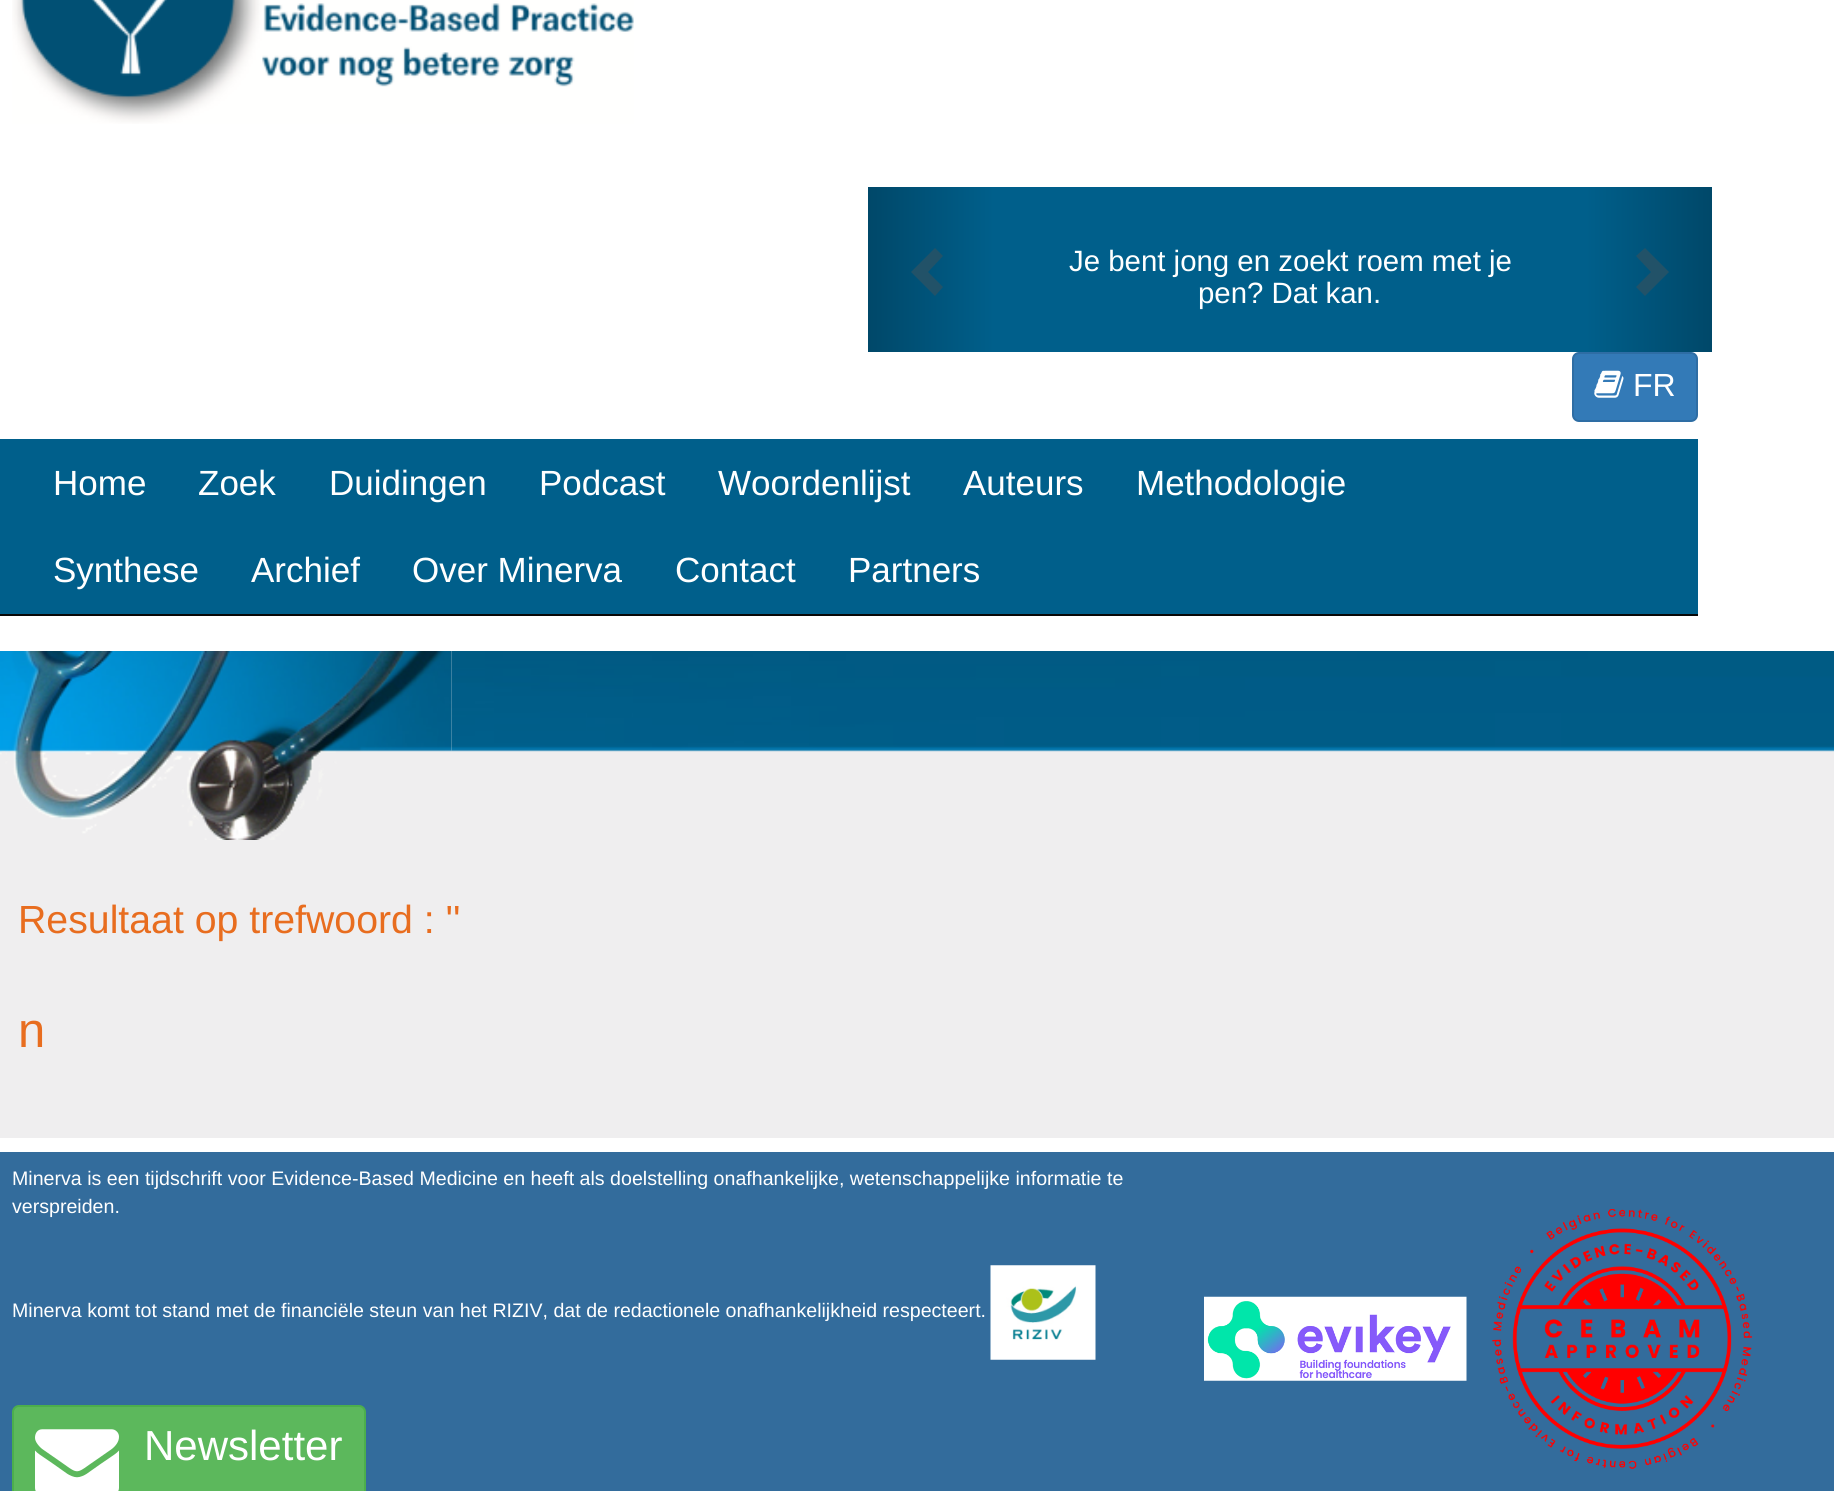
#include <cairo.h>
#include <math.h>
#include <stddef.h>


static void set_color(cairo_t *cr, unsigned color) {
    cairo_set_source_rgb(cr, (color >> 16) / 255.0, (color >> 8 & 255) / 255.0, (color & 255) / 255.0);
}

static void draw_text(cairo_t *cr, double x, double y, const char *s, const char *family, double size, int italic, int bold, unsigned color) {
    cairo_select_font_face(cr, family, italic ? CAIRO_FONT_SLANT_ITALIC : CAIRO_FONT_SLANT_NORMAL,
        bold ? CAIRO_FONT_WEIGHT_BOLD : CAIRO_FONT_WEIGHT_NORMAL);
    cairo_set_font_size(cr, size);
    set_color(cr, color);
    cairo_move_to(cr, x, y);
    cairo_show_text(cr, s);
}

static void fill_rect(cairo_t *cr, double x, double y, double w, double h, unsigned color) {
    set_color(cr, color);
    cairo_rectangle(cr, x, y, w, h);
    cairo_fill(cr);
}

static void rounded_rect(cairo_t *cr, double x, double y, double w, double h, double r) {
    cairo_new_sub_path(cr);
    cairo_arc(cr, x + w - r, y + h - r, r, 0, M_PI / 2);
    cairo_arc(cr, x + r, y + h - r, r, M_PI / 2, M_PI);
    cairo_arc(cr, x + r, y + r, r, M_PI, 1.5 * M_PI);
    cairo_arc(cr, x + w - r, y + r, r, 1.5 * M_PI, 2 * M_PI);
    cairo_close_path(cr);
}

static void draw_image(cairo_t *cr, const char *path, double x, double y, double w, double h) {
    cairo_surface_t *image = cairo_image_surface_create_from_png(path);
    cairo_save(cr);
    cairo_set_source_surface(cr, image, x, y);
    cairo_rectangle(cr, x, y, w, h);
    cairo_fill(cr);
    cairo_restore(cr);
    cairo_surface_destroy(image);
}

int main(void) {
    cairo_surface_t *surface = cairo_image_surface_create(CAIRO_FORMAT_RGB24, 1834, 1491);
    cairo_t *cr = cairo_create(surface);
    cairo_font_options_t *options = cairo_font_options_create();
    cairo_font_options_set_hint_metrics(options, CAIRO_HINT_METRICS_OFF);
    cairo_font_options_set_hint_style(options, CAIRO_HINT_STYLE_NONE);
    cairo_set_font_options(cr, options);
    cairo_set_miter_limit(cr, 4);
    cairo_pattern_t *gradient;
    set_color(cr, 0xFFFFFF);
    cairo_paint(cr);
    draw_image(cr, "assets/img1.png", 12, 0, 622, 124);
    gradient = cairo_pattern_create_linear(868, 270, 994, 270);
    cairo_pattern_add_color_stop_rgba(gradient, 0, 0, 0.282, 0.412, 1);
    cairo_pattern_add_color_stop_rgba(gradient, 1, 0, 0.373, 0.545, 1);
    cairo_set_source(cr, gradient);
    cairo_pattern_destroy(gradient);
    cairo_rectangle(cr, 868, 187, 126, 165);
    cairo_fill(cr);
    set_color(cr, 0x225268);
    cairo_new_path(cr);
    cairo_move_to(cr, 943, 256);
    cairo_line_to(cr, 928, 272);
    cairo_line_to(cr, 943, 287);
    cairo_line_to(cr, 935, 296);
    cairo_line_to(cr, 911, 272);
    cairo_line_to(cr, 935, 248);
    cairo_close_path(cr);
    cairo_fill(cr);
    fill_rect(cr, 994, 187, 592, 165, 0x005F8B);
    draw_text(cr, 1069, 271, "Je bent jong en zoekt roem met je", "Liberation Sans", 29.4, 0, 0, 0xFFFFFF);
    draw_text(cr, 1198, 303, "pen? Dat kan.", "Liberation Sans", 29.4, 0, 0, 0xFFFFFF);
    gradient = cairo_pattern_create_linear(1586, 270, 1712, 270);
    cairo_pattern_add_color_stop_rgba(gradient, 0, 0, 0.373, 0.545, 1);
    cairo_pattern_add_color_stop_rgba(gradient, 1, 0, 0.282, 0.412, 1);
    cairo_set_source(cr, gradient);
    cairo_pattern_destroy(gradient);
    cairo_rectangle(cr, 1586, 187, 126, 165);
    cairo_fill(cr);
    set_color(cr, 0x225268);
    cairo_new_path(cr);
    cairo_move_to(cr, 1669, 272);
    cairo_line_to(cr, 1645, 296);
    cairo_line_to(cr, 1636, 287);
    cairo_line_to(cr, 1651, 272);
    cairo_line_to(cr, 1636, 256);
    cairo_line_to(cr, 1645, 248);
    cairo_close_path(cr);
    cairo_fill(cr);
    set_color(cr, 0x337AB7);
    rounded_rect(cr, 1573, 353, 124, 68, 6);
    cairo_fill_preserve(cr);
    set_color(cr, 0x2E6DA4);
    cairo_stroke(cr);
    draw_image(cr, "assets/img2.png", 1594, 370, 30, 28);
    draw_text(cr, 1633, 396, "FR", "Liberation Sans", 32, 0, 0, 0xFFFFFF);
    fill_rect(cr, 0, 439, 1698, 175, 0x005F8B);
    fill_rect(cr, 0, 614, 1698, 2, 0x080808);
    draw_text(cr, 53, 495, "Home", "Liberation Sans", 35, 0, 0, 0xFFFFFF);
    draw_text(cr, 198, 495, "Zoek", "Liberation Sans", 35, 0, 0, 0xFFFFFF);
    draw_text(cr, 329, 495, "Duidingen", "Liberation Sans", 35, 0, 0, 0xFFFFFF);
    draw_text(cr, 539, 495, "Podcast", "Liberation Sans", 35, 0, 0, 0xFFFFFF);
    draw_text(cr, 718, 495, "Woordenlijst", "Liberation Sans", 35, 0, 0, 0xFFFFFF);
    draw_text(cr, 963, 495, "Auteurs", "Liberation Sans", 35, 0, 0, 0xFFFFFF);
    draw_text(cr, 1136, 495, "Methodologie", "Liberation Sans", 35, 0, 0, 0xFFFFFF);
    draw_text(cr, 53, 582, "Synthese", "Liberation Sans", 35, 0, 0, 0xFFFFFF);
    draw_text(cr, 251, 582, "Archief", "Liberation Sans", 35, 0, 0, 0xFFFFFF);
    draw_text(cr, 412, 582, "Over Minerva", "Liberation Sans", 35, 0, 0, 0xFFFFFF);
    draw_text(cr, 675, 582, "Contact", "Liberation Sans", 35, 0, 0, 0xFFFFFF);
    draw_text(cr, 848, 582, "Partners", "Liberation Sans", 35, 0, 0, 0xFFFFFF);
    fill_rect(cr, 0, 651, 1834, 487, 0xEFEEEF);
    draw_image(cr, "assets/img3.png", 0, 651, 452, 189);
    draw_image(cr, "assets/img4.png", 451, 651, 1383, 101);
    draw_text(cr, 18, 933, "Resultaat op trefwoord : ''", "Liberation Sans", 39.25, 0, 0, 0xE86D1F);
    draw_text(cr, 18, 1047, "n", "Liberation Sans", 49, 0, 0, 0xE86D1F);
    fill_rect(cr, 0, 1152, 1834, 339, 0x336C9C);
    draw_text(cr, 12, 1185, "Minerva is een tijdschrift voor Evidence-Based Medicine en heeft als doelstelling onafhankelijke, wetenschappelijke informatie te", "Liberation Sans", 19.6, 0, 0, 0xFFFFFF);
    draw_text(cr, 12, 1213, "verspreiden.", "Liberation Sans", 19.6, 0, 0, 0xFFFFFF);
    draw_text(cr, 12, 1317, "Minerva komt tot stand met de financiële steun van het RIZIV, dat de redactionele onafhankelijkheid respecteert.", "Liberation Sans", 19.6, 0, 0, 0xFFFFFF);
    draw_image(cr, "assets/img5.png", 990, 1265, 106, 95);
    set_color(cr, 0x5CB85C);
    rounded_rect(cr, 13, 1406, 352, 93, 6);
    cairo_fill_preserve(cr);
    set_color(cr, 0x4CAE4C);
    cairo_stroke(cr);
    draw_image(cr, "assets/img6.png", 35, 1429, 84, 62);
    draw_text(cr, 144, 1460, "Newsletter", "Liberation Sans", 42, 0, 0, 0xFFFFFF);
    draw_image(cr, "assets/img7.png", 1204, 1296, 263, 85);
    draw_image(cr, "assets/img8.png", 1492, 1209, 261, 260);
    cairo_surface_write_to_png(surface, "output.png");
    cairo_font_options_destroy(options);
    cairo_destroy(cr);
    cairo_surface_destroy(surface);
    return 0;
}
